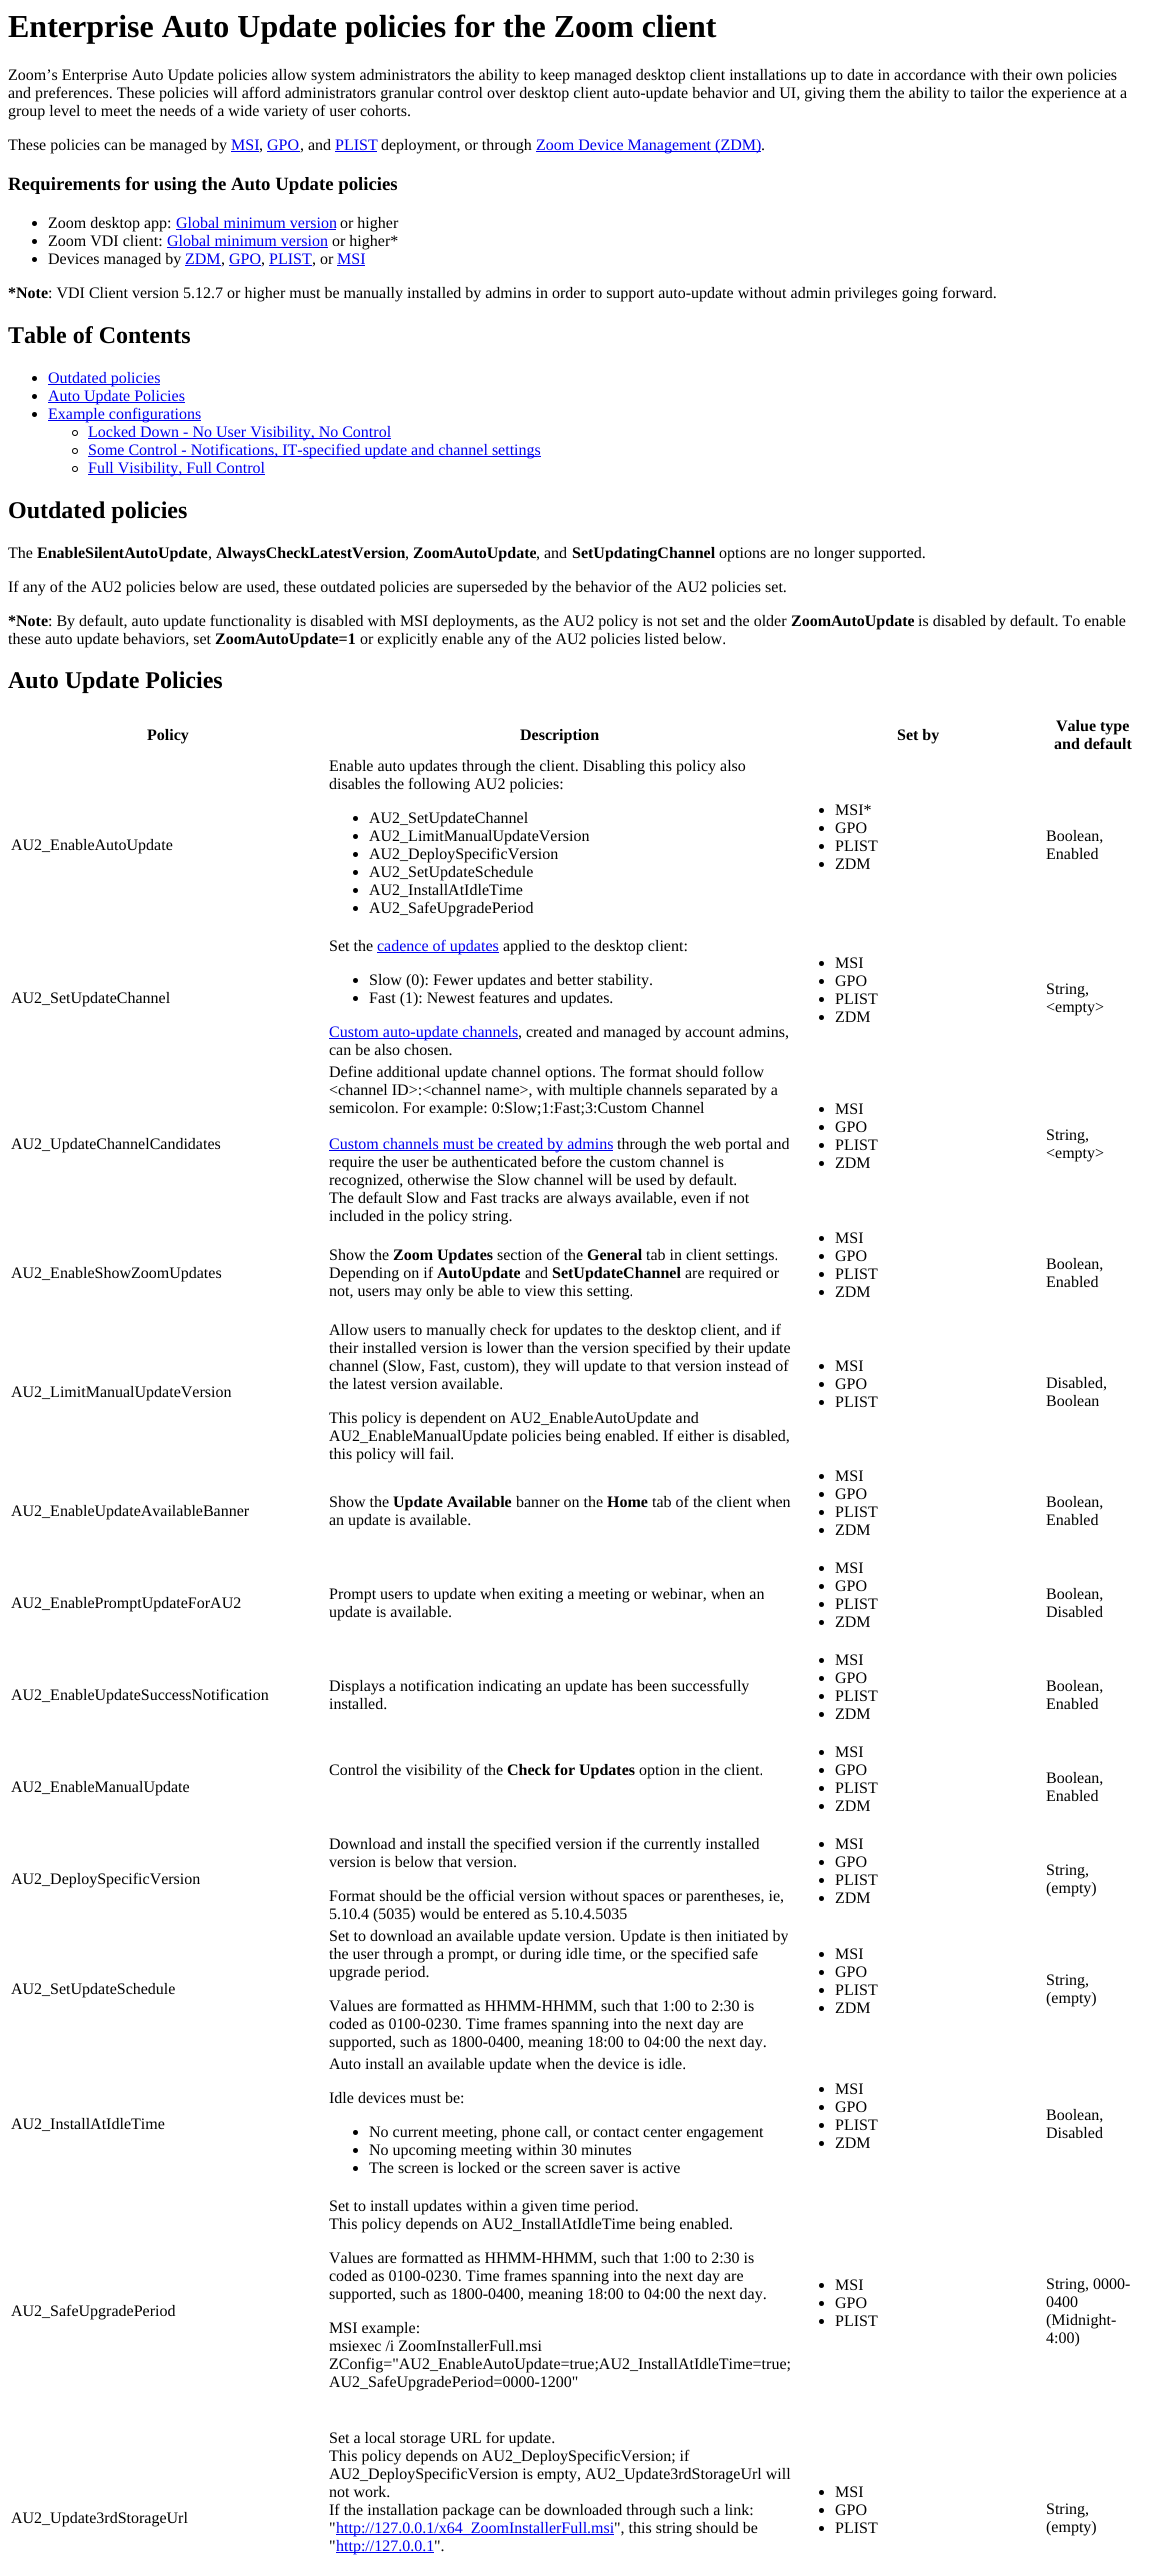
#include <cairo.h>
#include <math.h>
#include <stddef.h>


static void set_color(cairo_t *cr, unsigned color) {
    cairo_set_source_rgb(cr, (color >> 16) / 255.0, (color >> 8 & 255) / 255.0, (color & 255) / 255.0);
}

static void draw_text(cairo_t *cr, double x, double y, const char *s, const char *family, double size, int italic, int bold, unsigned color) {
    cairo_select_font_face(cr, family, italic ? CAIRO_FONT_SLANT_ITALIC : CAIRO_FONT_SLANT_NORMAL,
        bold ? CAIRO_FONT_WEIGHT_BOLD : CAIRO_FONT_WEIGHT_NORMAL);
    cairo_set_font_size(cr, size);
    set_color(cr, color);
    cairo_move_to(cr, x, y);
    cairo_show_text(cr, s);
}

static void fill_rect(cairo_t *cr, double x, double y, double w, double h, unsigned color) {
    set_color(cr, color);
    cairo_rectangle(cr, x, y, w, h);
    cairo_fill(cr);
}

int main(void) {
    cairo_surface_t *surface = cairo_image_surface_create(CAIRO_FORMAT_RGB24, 1151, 2565);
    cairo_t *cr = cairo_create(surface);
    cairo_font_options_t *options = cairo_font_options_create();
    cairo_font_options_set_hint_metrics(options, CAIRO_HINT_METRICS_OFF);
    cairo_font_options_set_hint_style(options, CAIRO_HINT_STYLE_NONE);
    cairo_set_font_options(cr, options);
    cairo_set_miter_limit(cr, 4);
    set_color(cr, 0xFFFFFF);
    cairo_paint(cr);
    draw_text(cr, 8, 37, "Enterprise Auto Update policies for the Zoom client", "Liberation Serif", 32, 0, 1, 0x000000);
    draw_text(cr, 8, 80, "Zoom’s Enterprise Auto Update policies allow system administrators the ability to keep managed desktop client installations up to date in accordance with their own policies", "Liberation Serif", 16, 0, 0, 0x000000);
    draw_text(cr, 8, 98, "and preferences. These policies will afford administrators granular control over desktop client auto-update behavior and UI, giving them the ability to tailor the experience at a", "Liberation Serif", 16, 0, 0, 0x000000);
    draw_text(cr, 8, 116, "group level to meet the needs of a wide variety of user cohorts.", "Liberation Serif", 16, 0, 0, 0x000000);
    draw_text(cr, 8, 150, "These policies can be managed by", "Liberation Serif", 16, 0, 0, 0x000000);
    draw_text(cr, 231, 150, "MSI", "Liberation Serif", 16, 0, 0, 0x0000EE);
    fill_rect(cr, 231, 151, 28, 1, 0x0000EE);
    draw_text(cr, 259, 150, ",", "Liberation Serif", 16, 0, 0, 0x000000);
    draw_text(cr, 267, 150, "GPO", "Liberation Serif", 16, 0, 0, 0x0000EE);
    fill_rect(cr, 267, 151, 33, 1, 0x0000EE);
    draw_text(cr, 300, 150, ", and", "Liberation Serif", 16, 0, 0, 0x000000);
    draw_text(cr, 335, 150, "PLIST", "Liberation Serif", 16, 0, 0, 0x0000EE);
    fill_rect(cr, 335, 151, 42, 1, 0x0000EE);
    draw_text(cr, 381, 150, "deployment, or through", "Liberation Serif", 16, 0, 0, 0x000000);
    fill_rect(cr, 536, 151, 225, 1, 0x0000EE);
    draw_text(cr, 536, 150, "Zoom Device Management (ZDM)", "Liberation Serif", 16, 0, 0, 0x0000EE);
    draw_text(cr, 761, 150, ".", "Liberation Serif", 16, 0, 0, 0x000000);
    draw_text(cr, 8, 190, "Requirements for using the Auto Update policies", "Liberation Serif", 18.75, 0, 1, 0x000000);
    cairo_new_path(cr);
    cairo_arc(cr, 34.5, 223.5, 2.5, 0, 2 * M_PI);
    cairo_fill(cr);
    draw_text(cr, 48, 228, "Zoom desktop app:", "Liberation Serif", 16, 0, 0, 0x000000);
    draw_text(cr, 176, 228, "Global minimum version", "Liberation Serif", 16, 0, 0, 0x0000EE);
    fill_rect(cr, 176, 229, 160, 1, 0x0000EE);
    draw_text(cr, 340, 228, "or higher", "Liberation Serif", 16, 0, 0, 0x000000);
    cairo_new_path(cr);
    cairo_arc(cr, 34.5, 241.5, 2.5, 0, 2 * M_PI);
    cairo_fill(cr);
    draw_text(cr, 48, 246, "Zoom VDI client:", "Liberation Serif", 16, 0, 0, 0x000000);
    draw_text(cr, 167, 246, "Global minimum version", "Liberation Serif", 16, 0, 0, 0x0000EE);
    fill_rect(cr, 167, 247, 161, 1, 0x0000EE);
    draw_text(cr, 332, 246, "or higher*", "Liberation Serif", 16, 0, 0, 0x000000);
    cairo_new_path(cr);
    cairo_arc(cr, 34.5, 259.5, 2.5, 0, 2 * M_PI);
    cairo_fill(cr);
    draw_text(cr, 48, 264, "Devices managed by", "Liberation Serif", 16, 0, 0, 0x000000);
    draw_text(cr, 185, 264, "ZDM", "Liberation Serif", 16, 0, 0, 0x0000EE);
    fill_rect(cr, 185, 265, 36, 1, 0x0000EE);
    draw_text(cr, 229, 264, "GPO", "Liberation Serif", 16, 0, 0, 0x0000EE);
    fill_rect(cr, 229, 265, 32, 1, 0x0000EE);
    draw_text(cr, 269, 264, "PLIST", "Liberation Serif", 16, 0, 0, 0x0000EE);
    fill_rect(cr, 269, 265, 43, 1, 0x0000EE);
    draw_text(cr, 312, 264, ", or", "Liberation Serif", 16, 0, 0, 0x000000);
    draw_text(cr, 337, 264, "MSI", "Liberation Serif", 16, 0, 0, 0x0000EE);
    fill_rect(cr, 337, 265, 28, 1, 0x0000EE);
    draw_text(cr, 221, 264, ",", "Liberation Serif", 16, 0, 0, 0x000000);
    draw_text(cr, 261, 264, ",", "Liberation Serif", 16, 0, 0, 0x000000);
    draw_text(cr, 8, 298, "*Note", "Liberation Serif", 16, 0, 1, 0x000000);
    draw_text(cr, 48, 298, ": VDI Client version 5.12.7 or higher must be manually installed by admins in order to support auto-update without admin privileges going forward.", "Liberation Serif", 16, 0, 0, 0x000000);
    draw_text(cr, 8, 343, "Table of Contents", "Liberation Serif", 24, 0, 1, 0x000000);
    cairo_new_path(cr);
    cairo_arc(cr, 34.5, 378.5, 2.5, 0, 2 * M_PI);
    cairo_fill(cr);
    fill_rect(cr, 48, 384, 112, 1, 0x0000EE);
    draw_text(cr, 48, 383, "Outdated policies", "Liberation Serif", 16, 0, 0, 0x0000EE);
    set_color(cr, 0x000000);
    cairo_new_path(cr);
    cairo_arc(cr, 34.5, 396.5, 2.5, 0, 2 * M_PI);
    cairo_fill(cr);
    fill_rect(cr, 48, 402, 137, 1, 0x0000EE);
    draw_text(cr, 48, 401, "Auto Update Policies", "Liberation Serif", 16, 0, 0, 0x0000EE);
    set_color(cr, 0x000000);
    cairo_new_path(cr);
    cairo_arc(cr, 34.5, 414.5, 2.5, 0, 2 * M_PI);
    cairo_fill(cr);
    fill_rect(cr, 48, 420, 153, 1, 0x0000EE);
    draw_text(cr, 48, 419, "Example configurations", "Liberation Serif", 16, 0, 0, 0x0000EE);
    cairo_new_path(cr);
    cairo_arc(cr, 75, 433, 2.5, 0, 2 * M_PI);
    set_color(cr, 0x000000);
    cairo_set_line_width(cr, 1);
    cairo_stroke(cr);
    fill_rect(cr, 88, 438, 303, 1, 0x0000EE);
    draw_text(cr, 88, 437, "Locked Down - No User Visibility, No Control", "Liberation Serif", 16, 0, 0, 0x0000EE);
    cairo_new_path(cr);
    cairo_arc(cr, 75, 451, 2.5, 0, 2 * M_PI);
    set_color(cr, 0x000000);
    cairo_stroke(cr);
    fill_rect(cr, 88, 456, 453, 1, 0x0000EE);
    draw_text(cr, 88, 455, "Some Control - Notifications, IT-specified update and channel settings", "Liberation Serif", 16, 0, 0, 0x0000EE);
    cairo_new_path(cr);
    cairo_arc(cr, 75, 469, 2.5, 0, 2 * M_PI);
    set_color(cr, 0x000000);
    cairo_stroke(cr);
    fill_rect(cr, 88, 474, 177, 1, 0x0000EE);
    draw_text(cr, 88, 473, "Full Visibility, Full Control", "Liberation Serif", 16, 0, 0, 0x0000EE);
    draw_text(cr, 8, 518, "Outdated policies", "Liberation Serif", 24, 0, 1, 0x000000);
    draw_text(cr, 8, 558, "The", "Liberation Serif", 16, 0, 0, 0x000000);
    draw_text(cr, 37, 558, "EnableSilentAutoUpdate", "Liberation Serif", 16, 0, 1, 0x000000);
    draw_text(cr, 208, 558, ",", "Liberation Serif", 16, 0, 0, 0x000000);
    draw_text(cr, 216, 558, "AlwaysCheckLatestVersion", "Liberation Serif", 16, 0, 1, 0x000000);
    draw_text(cr, 405, 558, ",", "Liberation Serif", 16, 0, 0, 0x000000);
    draw_text(cr, 413, 558, "ZoomAutoUpdate", "Liberation Serif", 16, 0, 1, 0x000000);
    draw_text(cr, 536, 558, ", and", "Liberation Serif", 16, 0, 0, 0x000000);
    draw_text(cr, 572, 558, "SetUpdatingChannel", "Liberation Serif", 16, 0, 1, 0x000000);
    draw_text(cr, 719, 558, "options are no longer supported.", "Liberation Serif", 16, 0, 0, 0x000000);
    draw_text(cr, 8, 592, "If any of the AU2 policies below are used, these outdated policies are superseded by the behavior of the AU2 policies set.", "Liberation Serif", 16, 0, 0, 0x000000);
    draw_text(cr, 8, 626, "*Note", "Liberation Serif", 16, 0, 1, 0x000000);
    draw_text(cr, 48, 626, ": By default, auto update functionality is disabled with MSI deployments, as the AU2 policy is not set and the older", "Liberation Serif", 16, 0, 0, 0x000000);
    draw_text(cr, 791, 626, "ZoomAutoUpdate", "Liberation Serif", 16, 0, 1, 0x000000);
    draw_text(cr, 918, 626, "is disabled by default. To enable", "Liberation Serif", 16, 0, 0, 0x000000);
    draw_text(cr, 8, 644, "these auto update behaviors, set", "Liberation Serif", 16, 0, 0, 0x000000);
    draw_text(cr, 215, 644, "ZoomAutoUpdate=1", "Liberation Serif", 16, 0, 1, 0x000000);
    draw_text(cr, 360, 644, "or explicitly enable any of the AU2 policies listed below.", "Liberation Serif", 16, 0, 0, 0x000000);
    draw_text(cr, 8, 688, "Auto Update Policies", "Liberation Serif", 24, 0, 1, 0x000000);
    draw_text(cr, 147, 740, "Policy", "Liberation Serif", 16, 0, 1, 0x000000);
    draw_text(cr, 520, 740, "Description", "Liberation Serif", 16, 0, 1, 0x000000);
    draw_text(cr, 897, 740, "Set by", "Liberation Serif", 16, 0, 1, 0x000000);
    draw_text(cr, 1056, 731, "Value type", "Liberation Serif", 16, 0, 1, 0x000000);
    draw_text(cr, 1054, 749, "and default", "Liberation Serif", 16, 0, 1, 0x000000);
    draw_text(cr, 11, 850, "AU2_EnableAutoUpdate", "Liberation Serif", 16, 0, 0, 0x000000);
    draw_text(cr, 329, 771, "Enable auto updates through the client. Disabling this policy also", "Liberation Serif", 16, 0, 0, 0x000000);
    draw_text(cr, 329, 789, "disables the following AU2 policies:", "Liberation Serif", 16, 0, 0, 0x000000);
    cairo_new_path(cr);
    cairo_arc(cr, 355.5, 818.5, 2.5, 0, 2 * M_PI);
    cairo_fill(cr);
    draw_text(cr, 369, 823, "AU2_SetUpdateChannel", "Liberation Serif", 16, 0, 0, 0x000000);
    cairo_new_path(cr);
    cairo_arc(cr, 355.5, 836.5, 2.5, 0, 2 * M_PI);
    cairo_fill(cr);
    draw_text(cr, 369, 841, "AU2_LimitManualUpdateVersion", "Liberation Serif", 16, 0, 0, 0x000000);
    cairo_new_path(cr);
    cairo_arc(cr, 355.5, 854.5, 2.5, 0, 2 * M_PI);
    cairo_fill(cr);
    draw_text(cr, 369, 859, "AU2_DeploySpecificVersion", "Liberation Serif", 16, 0, 0, 0x000000);
    cairo_new_path(cr);
    cairo_arc(cr, 355.5, 872.5, 2.5, 0, 2 * M_PI);
    cairo_fill(cr);
    draw_text(cr, 369, 877, "AU2_SetUpdateSchedule", "Liberation Serif", 16, 0, 0, 0x000000);
    cairo_new_path(cr);
    cairo_arc(cr, 355.5, 890.5, 2.5, 0, 2 * M_PI);
    cairo_fill(cr);
    draw_text(cr, 369, 895, "AU2_InstallAtIdleTime", "Liberation Serif", 16, 0, 0, 0x000000);
    cairo_new_path(cr);
    cairo_arc(cr, 355.5, 908.5, 2.5, 0, 2 * M_PI);
    cairo_fill(cr);
    draw_text(cr, 369, 913, "AU2_SafeUpgradePeriod", "Liberation Serif", 16, 0, 0, 0x000000);
    cairo_new_path(cr);
    cairo_arc(cr, 821.5, 810.5, 2.5, 0, 2 * M_PI);
    cairo_fill(cr);
    draw_text(cr, 835, 815, "MSI*", "Liberation Serif", 16, 0, 0, 0x000000);
    cairo_new_path(cr);
    cairo_arc(cr, 821.5, 828.5, 2.5, 0, 2 * M_PI);
    cairo_fill(cr);
    draw_text(cr, 835, 833, "GPO", "Liberation Serif", 16, 0, 0, 0x000000);
    cairo_new_path(cr);
    cairo_arc(cr, 821.5, 846.5, 2.5, 0, 2 * M_PI);
    cairo_fill(cr);
    draw_text(cr, 835, 851, "PLIST", "Liberation Serif", 16, 0, 0, 0x000000);
    cairo_new_path(cr);
    cairo_arc(cr, 821.5, 864.5, 2.5, 0, 2 * M_PI);
    cairo_fill(cr);
    draw_text(cr, 835, 869, "ZDM", "Liberation Serif", 16, 0, 0, 0x000000);
    draw_text(cr, 1046, 841, "Boolean,", "Liberation Serif", 16, 0, 0, 0x000000);
    draw_text(cr, 1046, 859, "Enabled", "Liberation Serif", 16, 0, 0, 0x000000);
    draw_text(cr, 11, 1003, "AU2_SetUpdateChannel", "Liberation Serif", 16, 0, 0, 0x000000);
    draw_text(cr, 329, 951, "Set the", "Liberation Serif", 16, 0, 0, 0x000000);
    fill_rect(cr, 377, 952, 122, 1, 0x0000EE);
    draw_text(cr, 377, 951, "cadence of updates", "Liberation Serif", 16, 0, 0, 0x0000EE);
    draw_text(cr, 503, 951, "applied to the desktop client:", "Liberation Serif", 16, 0, 0, 0x000000);
    cairo_new_path(cr);
    cairo_arc(cr, 355.5, 980.5, 2.5, 0, 2 * M_PI);
    cairo_fill(cr);
    draw_text(cr, 369, 985, "Slow (0): Fewer updates and better stability.", "Liberation Serif", 16, 0, 0, 0x000000);
    cairo_new_path(cr);
    cairo_arc(cr, 355.5, 998.5, 2.5, 0, 2 * M_PI);
    cairo_fill(cr);
    draw_text(cr, 369, 1003, "Fast (1): Newest features and updates.", "Liberation Serif", 16, 0, 0, 0x000000);
    fill_rect(cr, 329, 1038, 189, 1, 0x0000EE);
    draw_text(cr, 329, 1037, "Custom auto-update channels", "Liberation Serif", 16, 0, 0, 0x0000EE);
    draw_text(cr, 518, 1037, ", created and managed by account admins,", "Liberation Serif", 16, 0, 0, 0x000000);
    draw_text(cr, 329, 1055, "can be also chosen.", "Liberation Serif", 16, 0, 0, 0x000000);
    cairo_new_path(cr);
    cairo_arc(cr, 821.5, 963.5, 2.5, 0, 2 * M_PI);
    cairo_fill(cr);
    draw_text(cr, 835, 968, "MSI", "Liberation Serif", 16, 0, 0, 0x000000);
    cairo_new_path(cr);
    cairo_arc(cr, 821.5, 981.5, 2.5, 0, 2 * M_PI);
    cairo_fill(cr);
    draw_text(cr, 835, 986, "GPO", "Liberation Serif", 16, 0, 0, 0x000000);
    cairo_new_path(cr);
    cairo_arc(cr, 821.5, 999.5, 2.5, 0, 2 * M_PI);
    cairo_fill(cr);
    draw_text(cr, 835, 1004, "PLIST", "Liberation Serif", 16, 0, 0, 0x000000);
    cairo_new_path(cr);
    cairo_arc(cr, 821.5, 1017.5, 2.5, 0, 2 * M_PI);
    cairo_fill(cr);
    draw_text(cr, 835, 1022, "ZDM", "Liberation Serif", 16, 0, 0, 0x000000);
    draw_text(cr, 1046, 994, "String,", "Liberation Serif", 16, 0, 0, 0x000000);
    draw_text(cr, 1046, 1012, "<empty>", "Liberation Serif", 16, 0, 0, 0x000000);
    draw_text(cr, 11, 1149, "AU2_UpdateChannelCandidates", "Liberation Serif", 16, 0, 0, 0x000000);
    draw_text(cr, 329, 1077, "Define additional update channel options. The format should follow", "Liberation Serif", 16, 0, 0, 0x000000);
    draw_text(cr, 329, 1095, "<channel ID>:<channel name>, with multiple channels separated by a", "Liberation Serif", 16, 0, 0, 0x000000);
    draw_text(cr, 329, 1113, "semicolon. For example: 0:Slow;1:Fast;3:Custom Channel", "Liberation Serif", 16, 0, 0, 0x000000);
    fill_rect(cr, 329, 1150, 284, 1, 0x0000EE);
    draw_text(cr, 329, 1149, "Custom channels must be created by admins", "Liberation Serif", 16, 0, 0, 0x0000EE);
    draw_text(cr, 617, 1149, "through the web portal and", "Liberation Serif", 16, 0, 0, 0x000000);
    draw_text(cr, 329, 1167, "require the user be authenticated before the custom channel is", "Liberation Serif", 16, 0, 0, 0x000000);
    draw_text(cr, 329, 1185, "recognized, otherwise the Slow channel will be used by default.", "Liberation Serif", 16, 0, 0, 0x000000);
    draw_text(cr, 329, 1203, "The default Slow and Fast tracks are always available, even if not", "Liberation Serif", 16, 0, 0, 0x000000);
    draw_text(cr, 329, 1221, "included in the policy string.", "Liberation Serif", 16, 0, 0, 0x000000);
    cairo_new_path(cr);
    cairo_arc(cr, 821.5, 1109.5, 2.5, 0, 2 * M_PI);
    cairo_fill(cr);
    draw_text(cr, 835, 1114, "MSI", "Liberation Serif", 16, 0, 0, 0x000000);
    cairo_new_path(cr);
    cairo_arc(cr, 821.5, 1127.5, 2.5, 0, 2 * M_PI);
    cairo_fill(cr);
    draw_text(cr, 835, 1132, "GPO", "Liberation Serif", 16, 0, 0, 0x000000);
    cairo_new_path(cr);
    cairo_arc(cr, 821.5, 1145.5, 2.5, 0, 2 * M_PI);
    cairo_fill(cr);
    draw_text(cr, 835, 1150, "PLIST", "Liberation Serif", 16, 0, 0, 0x000000);
    cairo_new_path(cr);
    cairo_arc(cr, 821.5, 1163.5, 2.5, 0, 2 * M_PI);
    cairo_fill(cr);
    draw_text(cr, 835, 1168, "ZDM", "Liberation Serif", 16, 0, 0, 0x000000);
    draw_text(cr, 1046, 1140, "String,", "Liberation Serif", 16, 0, 0, 0x000000);
    draw_text(cr, 1046, 1158, "<empty>", "Liberation Serif", 16, 0, 0, 0x000000);
    draw_text(cr, 11, 1278, "AU2_EnableShowZoomUpdates", "Liberation Serif", 16, 0, 0, 0x000000);
    draw_text(cr, 329, 1260, "Show the", "Liberation Serif", 16, 0, 0, 0x000000);
    draw_text(cr, 393, 1260, "Zoom Updates", "Liberation Serif", 16, 0, 1, 0x000000);
    draw_text(cr, 497, 1260, "section of the", "Liberation Serif", 16, 0, 0, 0x000000);
    draw_text(cr, 587, 1260, "General", "Liberation Serif", 16, 0, 1, 0x000000);
    draw_text(cr, 646, 1260, "tab in client settings.", "Liberation Serif", 16, 0, 0, 0x000000);
    draw_text(cr, 329, 1278, "Depending on if", "Liberation Serif", 16, 0, 0, 0x000000);
    draw_text(cr, 437, 1278, "AutoUpdate", "Liberation Serif", 16, 0, 1, 0x000000);
    draw_text(cr, 525, 1278, "and", "Liberation Serif", 16, 0, 0, 0x000000);
    draw_text(cr, 552, 1278, "SetUpdateChannel", "Liberation Serif", 16, 0, 1, 0x000000);
    draw_text(cr, 685, 1278, "are required or", "Liberation Serif", 16, 0, 0, 0x000000);
    draw_text(cr, 329, 1296, "not, users may only be able to view this setting.", "Liberation Serif", 16, 0, 0, 0x000000);
    cairo_new_path(cr);
    cairo_arc(cr, 821.5, 1238.5, 2.5, 0, 2 * M_PI);
    cairo_fill(cr);
    draw_text(cr, 835, 1243, "MSI", "Liberation Serif", 16, 0, 0, 0x000000);
    cairo_new_path(cr);
    cairo_arc(cr, 821.5, 1256.5, 2.5, 0, 2 * M_PI);
    cairo_fill(cr);
    draw_text(cr, 835, 1261, "GPO", "Liberation Serif", 16, 0, 0, 0x000000);
    cairo_new_path(cr);
    cairo_arc(cr, 821.5, 1274.5, 2.5, 0, 2 * M_PI);
    cairo_fill(cr);
    draw_text(cr, 835, 1279, "PLIST", "Liberation Serif", 16, 0, 0, 0x000000);
    cairo_new_path(cr);
    cairo_arc(cr, 821.5, 1292.5, 2.5, 0, 2 * M_PI);
    cairo_fill(cr);
    draw_text(cr, 835, 1297, "ZDM", "Liberation Serif", 16, 0, 0, 0x000000);
    draw_text(cr, 1046, 1269, "Boolean,", "Liberation Serif", 16, 0, 0, 0x000000);
    draw_text(cr, 1046, 1287, "Enabled", "Liberation Serif", 16, 0, 0, 0x000000);
    draw_text(cr, 11, 1397, "AU2_LimitManualUpdateVersion", "Liberation Serif", 16, 0, 0, 0x000000);
    draw_text(cr, 329, 1335, "Allow users to manually check for updates to the desktop client, and if", "Liberation Serif", 16, 0, 0, 0x000000);
    draw_text(cr, 329, 1353, "their installed version is lower than the version specified by their update", "Liberation Serif", 16, 0, 0, 0x000000);
    draw_text(cr, 329, 1371, "channel (Slow, Fast, custom), they will update to that version instead of", "Liberation Serif", 16, 0, 0, 0x000000);
    draw_text(cr, 329, 1389, "the latest version available.", "Liberation Serif", 16, 0, 0, 0x000000);
    draw_text(cr, 329, 1423, "This policy is dependent on AU2_EnableAutoUpdate and", "Liberation Serif", 16, 0, 0, 0x000000);
    draw_text(cr, 329, 1441, "AU2_EnableManualUpdate policies being enabled. If either is disabled,", "Liberation Serif", 16, 0, 0, 0x000000);
    draw_text(cr, 329, 1459, "this policy will fail.", "Liberation Serif", 16, 0, 0, 0x000000);
    cairo_new_path(cr);
    cairo_arc(cr, 821.5, 1366.5, 2.5, 0, 2 * M_PI);
    cairo_fill(cr);
    draw_text(cr, 835, 1371, "MSI", "Liberation Serif", 16, 0, 0, 0x000000);
    cairo_new_path(cr);
    cairo_arc(cr, 821.5, 1384.5, 2.5, 0, 2 * M_PI);
    cairo_fill(cr);
    draw_text(cr, 835, 1389, "GPO", "Liberation Serif", 16, 0, 0, 0x000000);
    cairo_new_path(cr);
    cairo_arc(cr, 821.5, 1402.5, 2.5, 0, 2 * M_PI);
    cairo_fill(cr);
    draw_text(cr, 835, 1407, "PLIST", "Liberation Serif", 16, 0, 0, 0x000000);
    draw_text(cr, 1046, 1388, "Disabled,", "Liberation Serif", 16, 0, 0, 0x000000);
    draw_text(cr, 1046, 1406, "Boolean", "Liberation Serif", 16, 0, 0, 0x000000);
    draw_text(cr, 11, 1516, "AU2_EnableUpdateAvailableBanner", "Liberation Serif", 16, 0, 0, 0x000000);
    draw_text(cr, 329, 1507, "Show the", "Liberation Serif", 16, 0, 0, 0x000000);
    draw_text(cr, 393, 1507, "Update Available", "Liberation Serif", 16, 0, 1, 0x000000);
    draw_text(cr, 516, 1507, "banner on the", "Liberation Serif", 16, 0, 0, 0x000000);
    draw_text(cr, 607, 1507, "Home", "Liberation Serif", 16, 0, 1, 0x000000);
    draw_text(cr, 652, 1507, "tab of the client when", "Liberation Serif", 16, 0, 0, 0x000000);
    draw_text(cr, 329, 1525, "an update is available.", "Liberation Serif", 16, 0, 0, 0x000000);
    cairo_new_path(cr);
    cairo_arc(cr, 821.5, 1476.5, 2.5, 0, 2 * M_PI);
    cairo_fill(cr);
    draw_text(cr, 835, 1481, "MSI", "Liberation Serif", 16, 0, 0, 0x000000);
    cairo_new_path(cr);
    cairo_arc(cr, 821.5, 1494.5, 2.5, 0, 2 * M_PI);
    cairo_fill(cr);
    draw_text(cr, 835, 1499, "GPO", "Liberation Serif", 16, 0, 0, 0x000000);
    cairo_new_path(cr);
    cairo_arc(cr, 821.5, 1512.5, 2.5, 0, 2 * M_PI);
    cairo_fill(cr);
    draw_text(cr, 835, 1517, "PLIST", "Liberation Serif", 16, 0, 0, 0x000000);
    cairo_new_path(cr);
    cairo_arc(cr, 821.5, 1530.5, 2.5, 0, 2 * M_PI);
    cairo_fill(cr);
    draw_text(cr, 835, 1535, "ZDM", "Liberation Serif", 16, 0, 0, 0x000000);
    draw_text(cr, 1046, 1507, "Boolean,", "Liberation Serif", 16, 0, 0, 0x000000);
    draw_text(cr, 1046, 1525, "Enabled", "Liberation Serif", 16, 0, 0, 0x000000);
    draw_text(cr, 11, 1608, "AU2_EnablePromptUpdateForAU2", "Liberation Serif", 16, 0, 0, 0x000000);
    draw_text(cr, 329, 1599, "Prompt users to update when exiting a meeting or webinar, when an", "Liberation Serif", 16, 0, 0, 0x000000);
    draw_text(cr, 329, 1617, "update is available.", "Liberation Serif", 16, 0, 0, 0x000000);
    cairo_new_path(cr);
    cairo_arc(cr, 821.5, 1568.5, 2.5, 0, 2 * M_PI);
    cairo_fill(cr);
    draw_text(cr, 835, 1573, "MSI", "Liberation Serif", 16, 0, 0, 0x000000);
    cairo_new_path(cr);
    cairo_arc(cr, 821.5, 1586.5, 2.5, 0, 2 * M_PI);
    cairo_fill(cr);
    draw_text(cr, 835, 1591, "GPO", "Liberation Serif", 16, 0, 0, 0x000000);
    cairo_new_path(cr);
    cairo_arc(cr, 821.5, 1604.5, 2.5, 0, 2 * M_PI);
    cairo_fill(cr);
    draw_text(cr, 835, 1609, "PLIST", "Liberation Serif", 16, 0, 0, 0x000000);
    cairo_new_path(cr);
    cairo_arc(cr, 821.5, 1622.5, 2.5, 0, 2 * M_PI);
    cairo_fill(cr);
    draw_text(cr, 835, 1627, "ZDM", "Liberation Serif", 16, 0, 0, 0x000000);
    draw_text(cr, 1046, 1599, "Boolean,", "Liberation Serif", 16, 0, 0, 0x000000);
    draw_text(cr, 1046, 1617, "Disabled", "Liberation Serif", 16, 0, 0, 0x000000);
    draw_text(cr, 11, 1700, "AU2_EnableUpdateSuccessNotification", "Liberation Serif", 16, 0, 0, 0x000000);
    draw_text(cr, 329, 1691, "Displays a notification indicating an update has been successfully", "Liberation Serif", 16, 0, 0, 0x000000);
    draw_text(cr, 329, 1709, "installed.", "Liberation Serif", 16, 0, 0, 0x000000);
    cairo_new_path(cr);
    cairo_arc(cr, 821.5, 1660.5, 2.5, 0, 2 * M_PI);
    cairo_fill(cr);
    draw_text(cr, 835, 1665, "MSI", "Liberation Serif", 16, 0, 0, 0x000000);
    cairo_new_path(cr);
    cairo_arc(cr, 821.5, 1678.5, 2.5, 0, 2 * M_PI);
    cairo_fill(cr);
    draw_text(cr, 835, 1683, "GPO", "Liberation Serif", 16, 0, 0, 0x000000);
    cairo_new_path(cr);
    cairo_arc(cr, 821.5, 1696.5, 2.5, 0, 2 * M_PI);
    cairo_fill(cr);
    draw_text(cr, 835, 1701, "PLIST", "Liberation Serif", 16, 0, 0, 0x000000);
    cairo_new_path(cr);
    cairo_arc(cr, 821.5, 1714.5, 2.5, 0, 2 * M_PI);
    cairo_fill(cr);
    draw_text(cr, 835, 1719, "ZDM", "Liberation Serif", 16, 0, 0, 0x000000);
    draw_text(cr, 1046, 1691, "Boolean,", "Liberation Serif", 16, 0, 0, 0x000000);
    draw_text(cr, 1046, 1709, "Enabled", "Liberation Serif", 16, 0, 0, 0x000000);
    draw_text(cr, 11, 1792, "AU2_EnableManualUpdate", "Liberation Serif", 16, 0, 0, 0x000000);
    draw_text(cr, 329, 1775, "Control the visibility of the", "Liberation Serif", 16, 0, 0, 0x000000);
    draw_text(cr, 507, 1775, "Check for Updates", "Liberation Serif", 16, 0, 1, 0x000000);
    draw_text(cr, 639, 1775, "option in the client.", "Liberation Serif", 16, 0, 0, 0x000000);
    cairo_new_path(cr);
    cairo_arc(cr, 821.5, 1752.5, 2.5, 0, 2 * M_PI);
    cairo_fill(cr);
    draw_text(cr, 835, 1757, "MSI", "Liberation Serif", 16, 0, 0, 0x000000);
    cairo_new_path(cr);
    cairo_arc(cr, 821.5, 1770.5, 2.5, 0, 2 * M_PI);
    cairo_fill(cr);
    draw_text(cr, 835, 1775, "GPO", "Liberation Serif", 16, 0, 0, 0x000000);
    cairo_new_path(cr);
    cairo_arc(cr, 821.5, 1788.5, 2.5, 0, 2 * M_PI);
    cairo_fill(cr);
    draw_text(cr, 835, 1793, "PLIST", "Liberation Serif", 16, 0, 0, 0x000000);
    cairo_new_path(cr);
    cairo_arc(cr, 821.5, 1806.5, 2.5, 0, 2 * M_PI);
    cairo_fill(cr);
    draw_text(cr, 835, 1811, "ZDM", "Liberation Serif", 16, 0, 0, 0x000000);
    draw_text(cr, 1046, 1783, "Boolean,", "Liberation Serif", 16, 0, 0, 0x000000);
    draw_text(cr, 1046, 1801, "Enabled", "Liberation Serif", 16, 0, 0, 0x000000);
    draw_text(cr, 11, 1884, "AU2_DeploySpecificVersion", "Liberation Serif", 16, 0, 0, 0x000000);
    draw_text(cr, 329, 1849, "Download and install the specified version if the currently installed", "Liberation Serif", 16, 0, 0, 0x000000);
    draw_text(cr, 329, 1867, "version is below that version.", "Liberation Serif", 16, 0, 0, 0x000000);
    draw_text(cr, 329, 1901, "Format should be the official version without spaces or parentheses, ie,", "Liberation Serif", 16, 0, 0, 0x000000);
    draw_text(cr, 329, 1919, "5.10.4 (5035) would be entered as 5.10.4.5035", "Liberation Serif", 16, 0, 0, 0x000000);
    cairo_new_path(cr);
    cairo_arc(cr, 821.5, 1844.5, 2.5, 0, 2 * M_PI);
    cairo_fill(cr);
    draw_text(cr, 835, 1849, "MSI", "Liberation Serif", 16, 0, 0, 0x000000);
    cairo_new_path(cr);
    cairo_arc(cr, 821.5, 1862.5, 2.5, 0, 2 * M_PI);
    cairo_fill(cr);
    draw_text(cr, 835, 1867, "GPO", "Liberation Serif", 16, 0, 0, 0x000000);
    cairo_new_path(cr);
    cairo_arc(cr, 821.5, 1880.5, 2.5, 0, 2 * M_PI);
    cairo_fill(cr);
    draw_text(cr, 835, 1885, "PLIST", "Liberation Serif", 16, 0, 0, 0x000000);
    cairo_new_path(cr);
    cairo_arc(cr, 821.5, 1898.5, 2.5, 0, 2 * M_PI);
    cairo_fill(cr);
    draw_text(cr, 835, 1903, "ZDM", "Liberation Serif", 16, 0, 0, 0x000000);
    draw_text(cr, 1046, 1875, "String,", "Liberation Serif", 16, 0, 0, 0x000000);
    draw_text(cr, 1046, 1893, "(empty)", "Liberation Serif", 16, 0, 0, 0x000000);
    draw_text(cr, 11, 1994, "AU2_SetUpdateSchedule", "Liberation Serif", 16, 0, 0, 0x000000);
    draw_text(cr, 329, 1941, "Set to download an available update version. Update is then initiated by", "Liberation Serif", 16, 0, 0, 0x000000);
    draw_text(cr, 329, 1959, "the user through a prompt, or during idle time, or the specified safe", "Liberation Serif", 16, 0, 0, 0x000000);
    draw_text(cr, 329, 1977, "upgrade period.", "Liberation Serif", 16, 0, 0, 0x000000);
    draw_text(cr, 329, 2011, "Values are formatted as HHMM-HHMM, such that 1:00 to 2:30 is", "Liberation Serif", 16, 0, 0, 0x000000);
    draw_text(cr, 329, 2029, "coded as 0100-0230. Time frames spanning into the next day are", "Liberation Serif", 16, 0, 0, 0x000000);
    draw_text(cr, 329, 2047, "supported, such as 1800-0400, meaning 18:00 to 04:00 the next day.", "Liberation Serif", 16, 0, 0, 0x000000);
    cairo_new_path(cr);
    cairo_arc(cr, 821.5, 1954.5, 2.5, 0, 2 * M_PI);
    cairo_fill(cr);
    draw_text(cr, 835, 1959, "MSI", "Liberation Serif", 16, 0, 0, 0x000000);
    cairo_new_path(cr);
    cairo_arc(cr, 821.5, 1972.5, 2.5, 0, 2 * M_PI);
    cairo_fill(cr);
    draw_text(cr, 835, 1977, "GPO", "Liberation Serif", 16, 0, 0, 0x000000);
    cairo_new_path(cr);
    cairo_arc(cr, 821.5, 1990.5, 2.5, 0, 2 * M_PI);
    cairo_fill(cr);
    draw_text(cr, 835, 1995, "PLIST", "Liberation Serif", 16, 0, 0, 0x000000);
    cairo_new_path(cr);
    cairo_arc(cr, 821.5, 2008.5, 2.5, 0, 2 * M_PI);
    cairo_fill(cr);
    draw_text(cr, 835, 2013, "ZDM", "Liberation Serif", 16, 0, 0, 0x000000);
    draw_text(cr, 1046, 1985, "String,", "Liberation Serif", 16, 0, 0, 0x000000);
    draw_text(cr, 1046, 2003, "(empty)", "Liberation Serif", 16, 0, 0, 0x000000);
    draw_text(cr, 11, 2129, "AU2_InstallAtIdleTime", "Liberation Serif", 16, 0, 0, 0x000000);
    draw_text(cr, 329, 2069, "Auto install an available update when the device is idle.", "Liberation Serif", 16, 0, 0, 0x000000);
    draw_text(cr, 329, 2103, "Idle devices must be:", "Liberation Serif", 16, 0, 0, 0x000000);
    cairo_new_path(cr);
    cairo_arc(cr, 355.5, 2132.5, 2.5, 0, 2 * M_PI);
    cairo_fill(cr);
    draw_text(cr, 369, 2137, "No current meeting, phone call, or contact center engagement", "Liberation Serif", 16, 0, 0, 0x000000);
    cairo_new_path(cr);
    cairo_arc(cr, 355.5, 2150.5, 2.5, 0, 2 * M_PI);
    cairo_fill(cr);
    draw_text(cr, 369, 2155, "No upcoming meeting within 30 minutes", "Liberation Serif", 16, 0, 0, 0x000000);
    cairo_new_path(cr);
    cairo_arc(cr, 355.5, 2168.5, 2.5, 0, 2 * M_PI);
    cairo_fill(cr);
    draw_text(cr, 369, 2173, "The screen is locked or the screen saver is active", "Liberation Serif", 16, 0, 0, 0x000000);
    cairo_new_path(cr);
    cairo_arc(cr, 821.5, 2089.5, 2.5, 0, 2 * M_PI);
    cairo_fill(cr);
    draw_text(cr, 835, 2094, "MSI", "Liberation Serif", 16, 0, 0, 0x000000);
    cairo_new_path(cr);
    cairo_arc(cr, 821.5, 2107.5, 2.5, 0, 2 * M_PI);
    cairo_fill(cr);
    draw_text(cr, 835, 2112, "GPO", "Liberation Serif", 16, 0, 0, 0x000000);
    cairo_new_path(cr);
    cairo_arc(cr, 821.5, 2125.5, 2.5, 0, 2 * M_PI);
    cairo_fill(cr);
    draw_text(cr, 835, 2130, "PLIST", "Liberation Serif", 16, 0, 0, 0x000000);
    cairo_new_path(cr);
    cairo_arc(cr, 821.5, 2143.5, 2.5, 0, 2 * M_PI);
    cairo_fill(cr);
    draw_text(cr, 835, 2148, "ZDM", "Liberation Serif", 16, 0, 0, 0x000000);
    draw_text(cr, 1046, 2120, "Boolean,", "Liberation Serif", 16, 0, 0, 0x000000);
    draw_text(cr, 1046, 2138, "Disabled", "Liberation Serif", 16, 0, 0, 0x000000);
    draw_text(cr, 11, 2316, "AU2_SafeUpgradePeriod", "Liberation Serif", 16, 0, 0, 0x000000);
    draw_text(cr, 329, 2211, "Set to install updates within a given time period.", "Liberation Serif", 16, 0, 0, 0x000000);
    draw_text(cr, 329, 2229, "This policy depends on AU2_InstallAtIdleTime being enabled.", "Liberation Serif", 16, 0, 0, 0x000000);
    draw_text(cr, 329, 2263, "Values are formatted as HHMM-HHMM, such that 1:00 to 2:30 is", "Liberation Serif", 16, 0, 0, 0x000000);
    draw_text(cr, 329, 2281, "coded as 0100-0230. Time frames spanning into the next day are", "Liberation Serif", 16, 0, 0, 0x000000);
    draw_text(cr, 329, 2299, "supported, such as 1800-0400, meaning 18:00 to 04:00 the next day.", "Liberation Serif", 16, 0, 0, 0x000000);
    draw_text(cr, 329, 2333, "MSI example:", "Liberation Serif", 16, 0, 0, 0x000000);
    draw_text(cr, 329, 2351, "msiexec /i ZoomInstallerFull.msi", "Liberation Serif", 16, 0, 0, 0x000000);
    draw_text(cr, 329, 2369, "ZConfig=\"AU2_EnableAutoUpdate=true;AU2_InstallAtIdleTime=true;", "Liberation Serif", 16, 0, 0, 0x000000);
    draw_text(cr, 329, 2387, "AU2_SafeUpgradePeriod=0000-1200\"", "Liberation Serif", 16, 0, 0, 0x000000);
    cairo_new_path(cr);
    cairo_arc(cr, 821.5, 2285.5, 2.5, 0, 2 * M_PI);
    cairo_fill(cr);
    draw_text(cr, 835, 2290, "MSI", "Liberation Serif", 16, 0, 0, 0x000000);
    cairo_new_path(cr);
    cairo_arc(cr, 821.5, 2303.5, 2.5, 0, 2 * M_PI);
    cairo_fill(cr);
    draw_text(cr, 835, 2308, "GPO", "Liberation Serif", 16, 0, 0, 0x000000);
    cairo_new_path(cr);
    cairo_arc(cr, 821.5, 2321.5, 2.5, 0, 2 * M_PI);
    cairo_fill(cr);
    draw_text(cr, 835, 2326, "PLIST", "Liberation Serif", 16, 0, 0, 0x000000);
    draw_text(cr, 1046, 2289, "String, 0000-", "Liberation Serif", 16, 0, 0, 0x000000);
    draw_text(cr, 1046, 2307, "0400", "Liberation Serif", 16, 0, 0, 0x000000);
    draw_text(cr, 1046, 2325, "(Midnight-", "Liberation Serif", 16, 0, 0, 0x000000);
    draw_text(cr, 1046, 2343, "4:00)", "Liberation Serif", 16, 0, 0, 0x000000);
    draw_text(cr, 11, 2523, "AU2_Update3rdStorageUrl", "Liberation Serif", 16, 0, 0, 0x000000);
    draw_text(cr, 329, 2443, "Set a local storage URL for update.", "Liberation Serif", 16, 0, 0, 0x000000);
    draw_text(cr, 329, 2461, "This policy depends on AU2_DeploySpecificVersion; if", "Liberation Serif", 16, 0, 0, 0x000000);
    draw_text(cr, 329, 2479, "AU2_DeploySpecificVersion is empty, AU2_Update3rdStorageUrl will", "Liberation Serif", 16, 0, 0, 0x000000);
    draw_text(cr, 329, 2497, "not work.", "Liberation Serif", 16, 0, 0, 0x000000);
    draw_text(cr, 329, 2515, "If the installation package can be downloaded through such a link:", "Liberation Serif", 16, 0, 0, 0x000000);
    draw_text(cr, 329, 2533, "\"", "Liberation Serif", 16, 0, 0, 0x000000);
    fill_rect(cr, 336, 2534, 278, 1, 0x0000EE);
    draw_text(cr, 336, 2533, "http://127.0.0.1/x64_ZoomInstallerFull.msi", "Liberation Serif", 16, 0, 0, 0x0000EE);
    draw_text(cr, 614, 2533, "\", this string should be", "Liberation Serif", 16, 0, 0, 0x000000);
    draw_text(cr, 329, 2551, "\"", "Liberation Serif", 16, 0, 0, 0x000000);
    fill_rect(cr, 336, 2552, 98, 1, 0x0000EE);
    draw_text(cr, 336, 2551, "http://127.0.0.1", "Liberation Serif", 16, 0, 0, 0x0000EE);
    draw_text(cr, 434, 2551, "\".", "Liberation Serif", 16, 0, 0, 0x000000);
    cairo_new_path(cr);
    cairo_arc(cr, 821.5, 2492.5, 2.5, 0, 2 * M_PI);
    cairo_fill(cr);
    draw_text(cr, 835, 2497, "MSI", "Liberation Serif", 16, 0, 0, 0x000000);
    cairo_new_path(cr);
    cairo_arc(cr, 821.5, 2510.5, 2.5, 0, 2 * M_PI);
    cairo_fill(cr);
    draw_text(cr, 835, 2515, "GPO", "Liberation Serif", 16, 0, 0, 0x000000);
    cairo_new_path(cr);
    cairo_arc(cr, 821.5, 2528.5, 2.5, 0, 2 * M_PI);
    cairo_fill(cr);
    draw_text(cr, 835, 2533, "PLIST", "Liberation Serif", 16, 0, 0, 0x000000);
    draw_text(cr, 1046, 2514, "String,", "Liberation Serif", 16, 0, 0, 0x000000);
    draw_text(cr, 1046, 2532, "(empty)", "Liberation Serif", 16, 0, 0, 0x000000);
    cairo_surface_write_to_png(surface, "output.png");
    cairo_font_options_destroy(options);
    cairo_destroy(cr);
    cairo_surface_destroy(surface);
    return 0;
}
